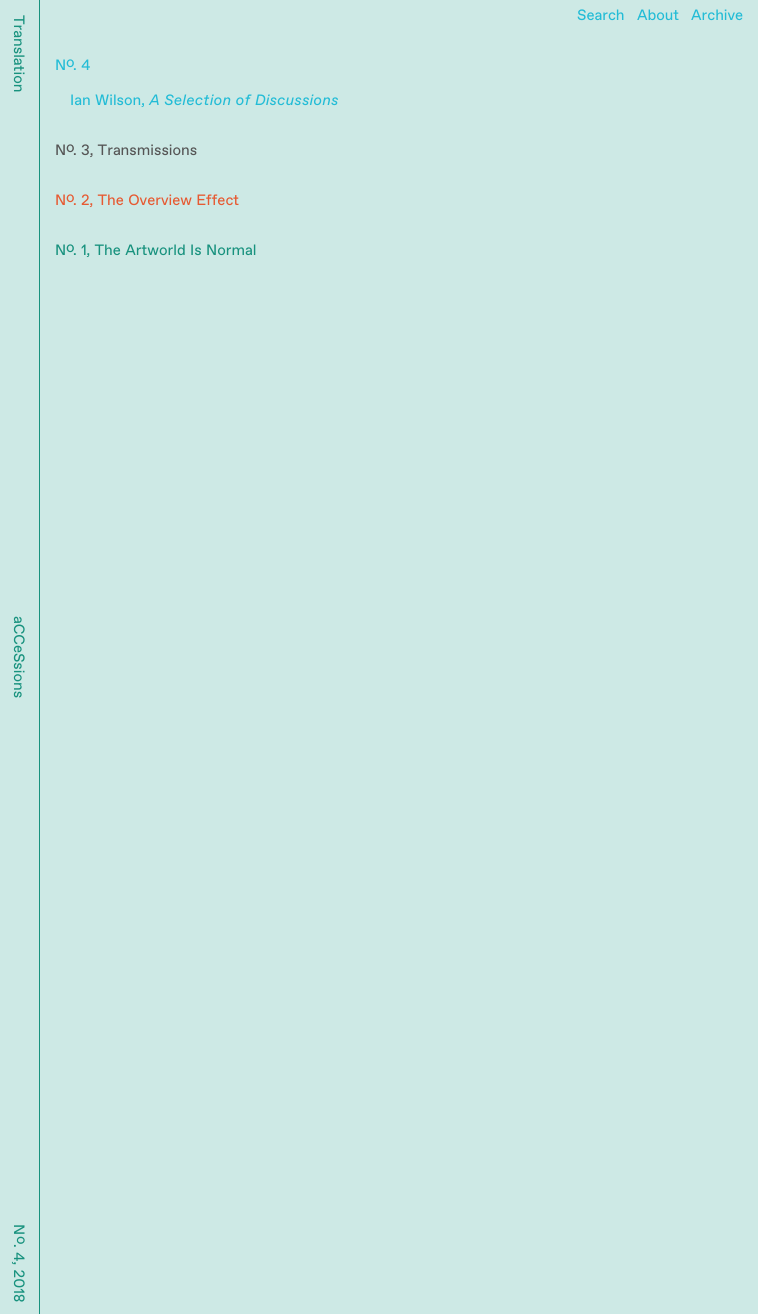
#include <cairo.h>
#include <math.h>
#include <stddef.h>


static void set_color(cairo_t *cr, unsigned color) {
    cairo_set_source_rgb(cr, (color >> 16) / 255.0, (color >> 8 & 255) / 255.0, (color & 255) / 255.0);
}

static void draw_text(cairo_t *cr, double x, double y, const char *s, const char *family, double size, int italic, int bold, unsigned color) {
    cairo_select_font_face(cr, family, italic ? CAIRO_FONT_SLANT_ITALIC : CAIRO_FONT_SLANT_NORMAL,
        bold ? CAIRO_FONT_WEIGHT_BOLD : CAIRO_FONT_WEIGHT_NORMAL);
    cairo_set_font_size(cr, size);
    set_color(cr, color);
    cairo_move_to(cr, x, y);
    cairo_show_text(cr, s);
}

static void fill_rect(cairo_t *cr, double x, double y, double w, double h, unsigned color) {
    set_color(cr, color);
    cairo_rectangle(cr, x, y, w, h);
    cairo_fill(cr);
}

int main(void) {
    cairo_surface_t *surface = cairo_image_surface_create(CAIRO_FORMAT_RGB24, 758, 1314);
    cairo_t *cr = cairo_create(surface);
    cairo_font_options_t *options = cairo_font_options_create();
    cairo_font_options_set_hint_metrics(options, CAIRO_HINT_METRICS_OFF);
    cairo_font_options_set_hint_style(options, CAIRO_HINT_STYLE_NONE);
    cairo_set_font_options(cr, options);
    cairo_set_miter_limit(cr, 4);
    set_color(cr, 0xCDE9E5);
    cairo_paint(cr);
    fill_rect(cr, 39, 0, 1, 1314, 0x18927E);
    cairo_save(cr);
    cairo_translate(cr, 14, 15);
    cairo_rotate(cr, 90 * M_PI / 180);
    draw_text(cr, 0, 0, "Translation", "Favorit", 15, 0, 0, 0x18927E);
    cairo_restore(cr);
    cairo_save(cr);
    cairo_translate(cr, 14, 616);
    cairo_rotate(cr, 90 * M_PI / 180);
    draw_text(cr, 0, 0, "aCCeSsions", "Favorit", 15, 0, 0, 0x18927E);
    cairo_restore(cr);
    cairo_save(cr);
    cairo_translate(cr, 14, 1224);
    cairo_rotate(cr, 90 * M_PI / 180);
    draw_text(cr, 0, 0, "N", "Favorit", 15, 0, 0, 0x18927E);
    cairo_restore(cr);
    cairo_save(cr);
    cairo_translate(cr, 17, 1236);
    cairo_rotate(cr, 90 * M_PI / 180);
    draw_text(cr, 0, 0, "o", "Favorit", 15, 0, 0, 0x18927E);
    cairo_restore(cr);
    cairo_save(cr);
    cairo_translate(cr, 14, 1244);
    cairo_rotate(cr, 90 * M_PI / 180);
    draw_text(cr, 0, 0, ". 4, 2018", "Favorit", 15, 0, 0, 0x18927E);
    cairo_restore(cr);
    draw_text(cr, 577, 20, "Search", "Favorit", 15, 0, 0, 0x23BCD6);
    draw_text(cr, 637, 20, "About", "Favorit", 15, 0, 0, 0x23BCD6);
    draw_text(cr, 691, 20, "Archive", "Favorit", 15, 0, 0, 0x23BCD6);
    draw_text(cr, 55, 70, "N", "Favorit", 15, 0, 0, 0x23BCD6);
    draw_text(cr, 66, 67, "o", "Favorit", 15, 0, 0, 0x23BCD6);
    draw_text(cr, 73, 70, ". 4", "Favorit", 15, 0, 0, 0x23BCD6);
    draw_text(cr, 70, 105, "Ian Wilson,", "Favorit", 15, 0, 0, 0x23BCD6);
    draw_text(cr, 149, 105, "A Selection of Discussions", "Favorit", 15, 1, 0, 0x23BCD6);
    draw_text(cr, 55, 155, "N", "Favorit", 15, 0, 0, 0x555555);
    draw_text(cr, 66, 152, "o", "Favorit", 15, 0, 0, 0x555555);
    draw_text(cr, 73, 155, ". 3, Transmissions", "Favorit", 15, 0, 0, 0x555555);
    draw_text(cr, 55, 205, "N", "Favorit", 15, 0, 0, 0xE65A32);
    draw_text(cr, 66, 202, "o", "Favorit", 15, 0, 0, 0xE65A32);
    draw_text(cr, 73, 205, ". 2, The Overview Effect", "Favorit", 15, 0, 0, 0xE65A32);
    draw_text(cr, 55, 255, "N", "Favorit", 15, 0, 0, 0x18927E);
    draw_text(cr, 66, 252, "o", "Favorit", 15, 0, 0, 0x18927E);
    draw_text(cr, 73, 255, ". 1, The Artworld Is Normal", "Favorit", 15, 0, 0, 0x18927E);
    cairo_surface_write_to_png(surface, "output.png");
    cairo_font_options_destroy(options);
    cairo_destroy(cr);
    cairo_surface_destroy(surface);
    return 0;
}
